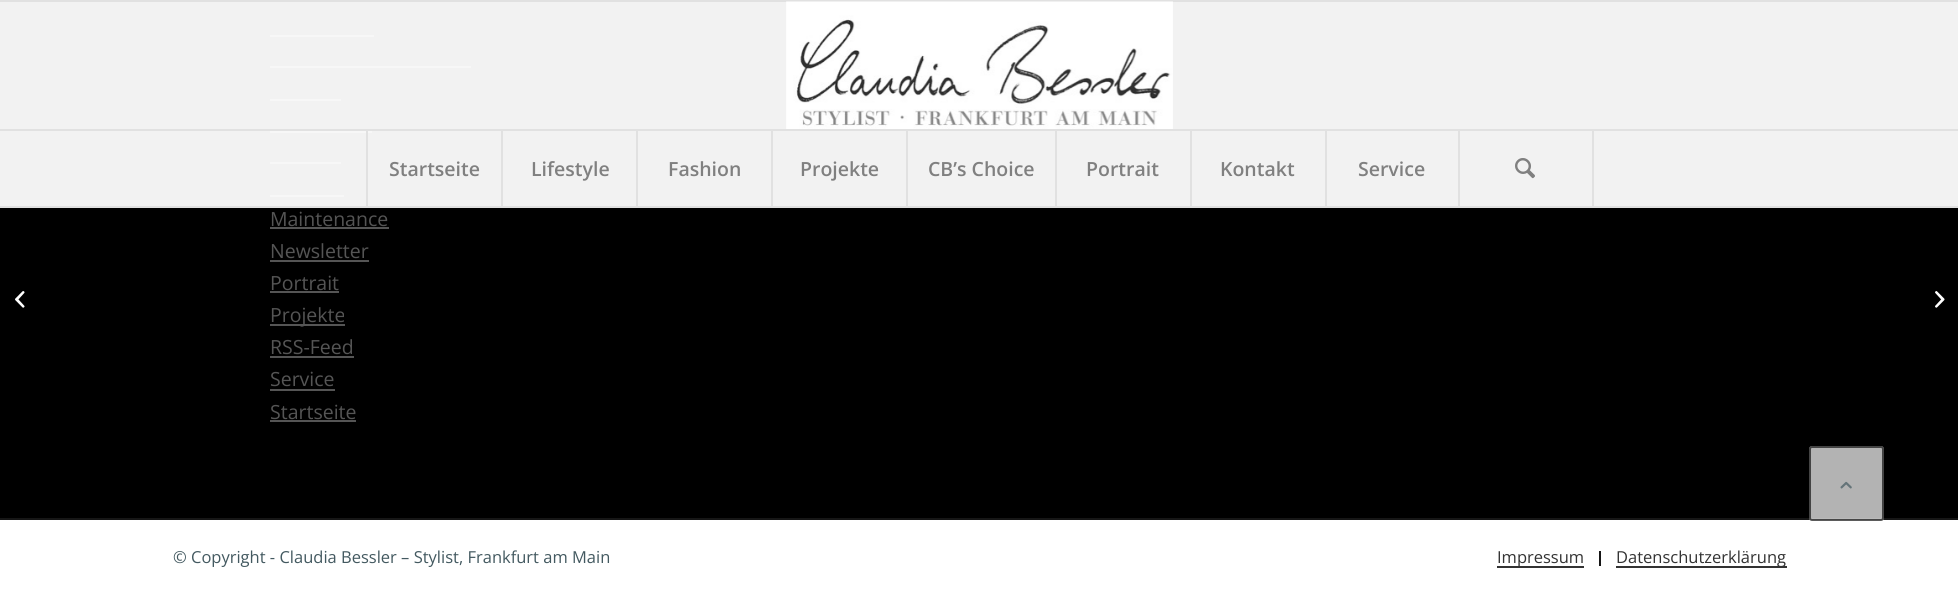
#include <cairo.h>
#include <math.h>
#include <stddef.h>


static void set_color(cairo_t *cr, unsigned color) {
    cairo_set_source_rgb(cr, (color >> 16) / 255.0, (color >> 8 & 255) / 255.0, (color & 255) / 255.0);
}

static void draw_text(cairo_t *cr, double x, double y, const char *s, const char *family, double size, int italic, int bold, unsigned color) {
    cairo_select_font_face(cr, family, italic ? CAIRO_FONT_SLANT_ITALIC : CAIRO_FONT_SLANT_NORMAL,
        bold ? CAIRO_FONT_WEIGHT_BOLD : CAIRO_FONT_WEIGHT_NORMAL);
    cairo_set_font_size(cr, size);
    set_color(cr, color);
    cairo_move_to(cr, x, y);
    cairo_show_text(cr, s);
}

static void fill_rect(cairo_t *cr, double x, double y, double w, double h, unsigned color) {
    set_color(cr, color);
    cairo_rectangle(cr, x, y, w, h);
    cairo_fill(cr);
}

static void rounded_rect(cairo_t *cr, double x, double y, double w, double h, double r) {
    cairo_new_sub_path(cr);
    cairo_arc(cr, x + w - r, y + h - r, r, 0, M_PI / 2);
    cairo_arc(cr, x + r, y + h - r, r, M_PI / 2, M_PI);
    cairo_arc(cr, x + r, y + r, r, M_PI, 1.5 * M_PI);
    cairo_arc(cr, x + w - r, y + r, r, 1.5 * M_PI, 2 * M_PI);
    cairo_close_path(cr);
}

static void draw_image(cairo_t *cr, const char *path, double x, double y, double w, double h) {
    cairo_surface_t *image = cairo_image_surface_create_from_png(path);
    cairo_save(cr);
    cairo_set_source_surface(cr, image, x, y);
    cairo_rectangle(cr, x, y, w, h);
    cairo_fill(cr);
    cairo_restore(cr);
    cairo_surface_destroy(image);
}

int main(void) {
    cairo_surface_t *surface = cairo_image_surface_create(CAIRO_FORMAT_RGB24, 1958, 595);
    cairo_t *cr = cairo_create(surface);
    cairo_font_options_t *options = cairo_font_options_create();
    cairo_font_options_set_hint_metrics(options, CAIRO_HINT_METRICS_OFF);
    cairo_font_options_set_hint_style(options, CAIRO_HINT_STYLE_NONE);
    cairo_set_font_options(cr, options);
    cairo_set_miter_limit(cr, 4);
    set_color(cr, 0x000000);
    cairo_paint(cr);
    fill_rect(cr, 0, 0, 1958, 2, 0xE1E1E1);
    fill_rect(cr, 0, 206, 1958, 2, 0xE1E1E1);
    fill_rect(cr, 0, 2, 1958, 204, 0xF2F2F2);
    draw_image(cr, "assets/img1.png", 786, 1, 387, 128);
    fill_rect(cr, 0, 129, 1958, 2, 0xE1E1E1);
    fill_rect(cr, 270, 131, 102, 2, 0xF7F7F7);
    fill_rect(cr, 366, 131, 2, 75, 0xE1E1E1);
    draw_text(cr, 389, 176, "Startseite", "Open Sans SemiBold", 19.5, 0, 0, 0x808080);
    fill_rect(cr, 501, 131, 2, 75, 0xE1E1E1);
    draw_text(cr, 531, 176, "Lifestyle", "Open Sans SemiBold", 19.5, 0, 0, 0x808080);
    fill_rect(cr, 636, 131, 2, 75, 0xE1E1E1);
    draw_text(cr, 668, 176, "Fashion", "Open Sans SemiBold", 19.5, 0, 0, 0x808080);
    fill_rect(cr, 771, 131, 2, 75, 0xE1E1E1);
    draw_text(cr, 800, 176, "Projekte", "Open Sans SemiBold", 19.5, 0, 0, 0x808080);
    fill_rect(cr, 906, 131, 2, 75, 0xE1E1E1);
    draw_text(cr, 928, 176, "CB’s Choice", "Open Sans SemiBold", 19.5, 0, 0, 0x808080);
    fill_rect(cr, 1055, 131, 2, 75, 0xE1E1E1);
    draw_text(cr, 1086, 176, "Portrait", "Open Sans SemiBold", 19.5, 0, 0, 0x808080);
    fill_rect(cr, 1190, 131, 2, 75, 0xE1E1E1);
    draw_text(cr, 1220, 176, "Kontakt", "Open Sans SemiBold", 19.5, 0, 0, 0x808080);
    fill_rect(cr, 1325, 131, 2, 75, 0xE1E1E1);
    draw_text(cr, 1358, 176, "Service", "Open Sans SemiBold", 19.5, 0, 0, 0x808080);
    fill_rect(cr, 1592, 131, 2, 75, 0xE1E1E1);
    fill_rect(cr, 1458, 131, 2, 75, 0xE1E1E1);
    draw_image(cr, "assets/img2.png", 1515, 158, 20, 21);
    draw_image(cr, "assets/img3.png", 15, 291, 10, 17);
    fill_rect(cr, 270, 35, 104, 2, 0xF7F7F7);
    fill_rect(cr, 270, 66, 201, 2, 0xF7F7F7);
    fill_rect(cr, 270, 99, 71, 2, 0xF7F7F7);
    fill_rect(cr, 270, 162, 71, 2, 0xF7F7F7);
    fill_rect(cr, 270, 195, 74, 2, 0xF7F7F7);
    draw_text(cr, 270, 226, "Maintenance", "Open Sans", 19.5, 0, 0, 0x555555);
    fill_rect(cr, 270, 227, 119, 2, 0x555555);
    draw_text(cr, 270, 258, "Newsletter", "Open Sans", 19.5, 0, 0, 0x555555);
    fill_rect(cr, 270, 260, 99, 2, 0x555555);
    draw_text(cr, 270, 290, "Portrait", "Open Sans", 19.5, 0, 0, 0x555555);
    fill_rect(cr, 270, 291, 69, 2, 0x555555);
    fill_rect(cr, 270, 324, 75, 2, 0x555555);
    draw_text(cr, 270, 322, "Projekte", "Open Sans", 19.5, 0, 0, 0x555555);
    draw_text(cr, 270, 354, "RSS-Feed", "Open Sans", 19.5, 0, 0, 0x555555);
    fill_rect(cr, 270, 356, 84, 2, 0x555555);
    draw_text(cr, 270, 386, "Service", "Open Sans", 19.5, 0, 0, 0x555555);
    fill_rect(cr, 270, 389, 65, 2, 0x555555);
    draw_text(cr, 270, 419, "Startseite", "Open Sans", 19.5, 0, 0, 0x555555);
    fill_rect(cr, 270, 420, 86, 2, 0x555555);
    fill_rect(cr, 0, 520, 1958, 75, 0xFFFFFF);
    fill_rect(cr, 0, 518, 1958, 2, 0x161616);
    draw_text(cr, 173, 563, "© Copyright - Claudia Bessler – Stylist, Frankfurt am Main", "Open Sans", 16.5, 0, 0, 0x435960);
    fill_rect(cr, 1497, 566, 87, 2, 0x333333);
    draw_text(cr, 1497, 563, "Impressum", "Open Sans", 16.5, 0, 0, 0x333333);
    fill_rect(cr, 1599, 551, 2, 15, 0x161616);
    fill_rect(cr, 1616, 566, 171, 2, 0x333333);
    draw_text(cr, 1616, 563, "Datenschutzerklärung", "Open Sans", 16.5, 0, 0, 0x333333);
    draw_image(cr, "assets/img4.png", 1935, 291, 10, 17);
    cairo_set_source_rgba(cr, 1, 1, 1, 0.7);
    rounded_rect(cr, 1809, 446, 75, 75, 3);
    cairo_fill(cr);
    rounded_rect(cr, 1810, 447, 73, 73, 2);
    cairo_set_source_rgba(cr, 0.086, 0.086, 0.086, 0.7);
    cairo_stroke(cr);
    draw_image(cr, "assets/img5.png", 1840, 481, 12, 8);
    cairo_surface_write_to_png(surface, "output.png");
    cairo_font_options_destroy(options);
    cairo_destroy(cr);
    cairo_surface_destroy(surface);
    return 0;
}
